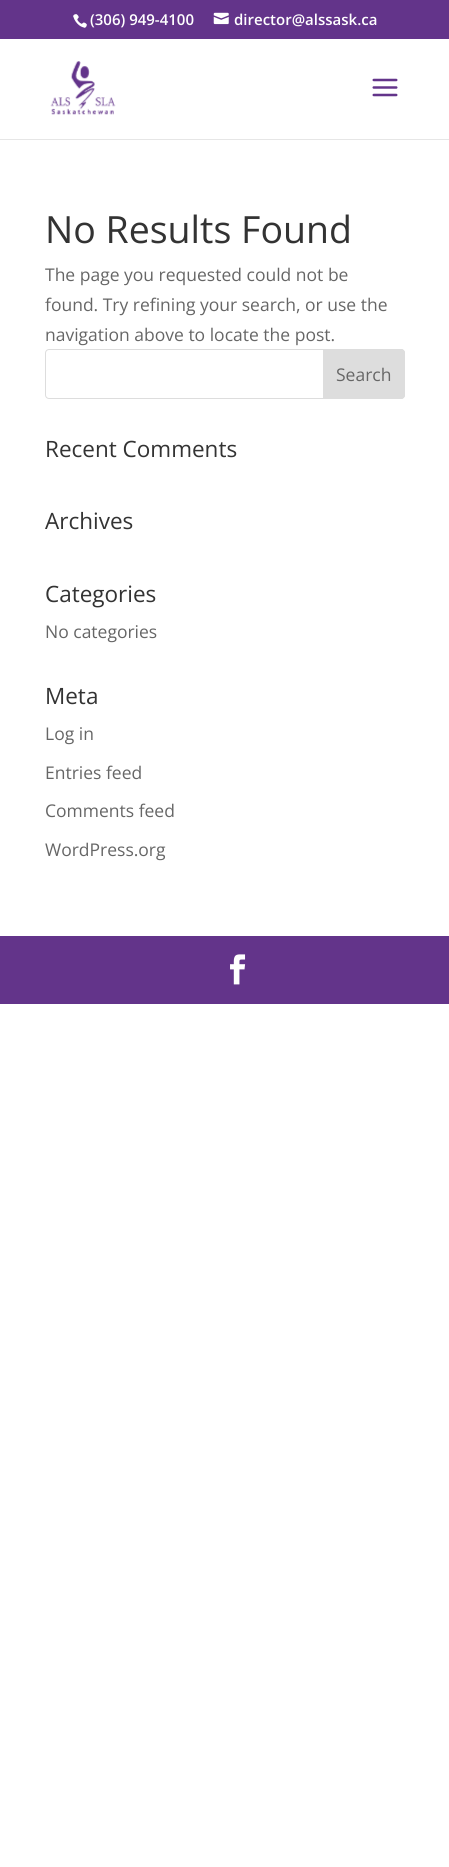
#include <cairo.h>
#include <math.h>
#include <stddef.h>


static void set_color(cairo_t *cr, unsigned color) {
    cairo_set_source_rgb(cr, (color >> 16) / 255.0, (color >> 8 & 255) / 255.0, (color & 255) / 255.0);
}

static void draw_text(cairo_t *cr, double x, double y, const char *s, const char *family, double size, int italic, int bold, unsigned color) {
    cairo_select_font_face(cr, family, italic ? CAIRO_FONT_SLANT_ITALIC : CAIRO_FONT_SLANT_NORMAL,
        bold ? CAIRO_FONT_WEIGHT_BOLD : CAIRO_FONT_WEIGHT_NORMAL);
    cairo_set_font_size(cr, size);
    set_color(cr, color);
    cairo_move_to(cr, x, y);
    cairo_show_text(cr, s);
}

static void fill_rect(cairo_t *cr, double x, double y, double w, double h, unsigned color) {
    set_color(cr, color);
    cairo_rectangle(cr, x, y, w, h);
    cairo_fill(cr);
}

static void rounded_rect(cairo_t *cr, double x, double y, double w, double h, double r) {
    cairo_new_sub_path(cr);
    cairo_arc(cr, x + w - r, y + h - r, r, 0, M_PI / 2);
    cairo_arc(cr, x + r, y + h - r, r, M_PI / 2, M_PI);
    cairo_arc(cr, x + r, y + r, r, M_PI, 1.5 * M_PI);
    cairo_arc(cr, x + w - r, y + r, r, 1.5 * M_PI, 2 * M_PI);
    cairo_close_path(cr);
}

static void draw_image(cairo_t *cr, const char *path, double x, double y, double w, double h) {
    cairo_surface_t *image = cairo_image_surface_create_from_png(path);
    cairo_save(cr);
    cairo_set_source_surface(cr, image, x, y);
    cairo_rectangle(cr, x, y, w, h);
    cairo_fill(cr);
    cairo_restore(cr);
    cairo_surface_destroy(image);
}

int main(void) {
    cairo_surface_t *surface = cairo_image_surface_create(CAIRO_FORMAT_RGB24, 449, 1867);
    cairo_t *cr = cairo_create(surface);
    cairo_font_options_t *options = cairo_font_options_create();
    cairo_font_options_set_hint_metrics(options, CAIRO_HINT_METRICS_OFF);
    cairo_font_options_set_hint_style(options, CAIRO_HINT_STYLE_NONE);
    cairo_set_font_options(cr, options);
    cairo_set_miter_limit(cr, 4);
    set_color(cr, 0xFFFFFF);
    cairo_paint(cr);
    fill_rect(cr, 0, 0, 449, 39, 0x63348A);
    draw_image(cr, "assets/img1.png", 73, 14, 14, 14);
    draw_text(cr, 90, 25, "(306) 949-4100", "Open Sans SemiBold", 15, 0, 0, 0xFFFFFF);
    draw_image(cr, "assets/img2.png", 213, 12, 16, 13);
    draw_text(cr, 234, 25, "director@alssask.ca", "Open Sans SemiBold", 15, 0, 0, 0xFFFFFF);
    fill_rect(cr, 0, 139, 449, 1, 0xE6E6E6);
    draw_image(cr, "assets/img3.png", 50, 61, 66, 54);
    draw_image(cr, "assets/img4.png", 372, 78, 26, 19);
    draw_text(cr, 45, 243, "No Results Found", "Open Sans", 37.5, 0, 0, 0x333333);
    draw_text(cr, 45, 281, "The page you requested could not be", "Open Sans", 17.5, 0, 0, 0x666666);
    draw_text(cr, 45, 311, "found. Try refining your search, or use the", "Open Sans", 17.5, 0, 0, 0x666666);
    draw_text(cr, 45, 341, "navigation above to locate the post.", "Open Sans", 17.5, 0, 0, 0x666666);
    rounded_rect(cr, 45.5, 349.5, 359, 49, 3.5);
    set_color(cr, 0xDDDDDD);
    cairo_set_line_width(cr, 1);
    cairo_stroke(cr);
    cairo_new_path(cr);
    cairo_move_to(cr, 323.5, 349.5);
    cairo_line_to(cr, 401, 349.5);
    cairo_curve_to(cr, 403, 349.5, 404.5, 351, 404.5, 353);
    cairo_line_to(cr, 404.5, 395);
    cairo_curve_to(cr, 404.5, 397, 403, 398.5, 401, 398.5);
    cairo_line_to(cr, 323.5, 398.5);
    cairo_close_path(cr);
    cairo_fill_preserve(cr);
    cairo_stroke(cr);
    draw_text(cr, 336, 381, "Search", "Open Sans", 17.5, 0, 0, 0x666666);
    draw_text(cr, 45, 457, "Recent Comments", "Open Sans", 22.5, 0, 0, 0x333333);
    draw_text(cr, 45, 529, "Archives", "Open Sans", 22.5, 0, 0, 0x333333);
    draw_text(cr, 45, 602, "Categories", "Open Sans", 22.5, 0, 0, 0x333333);
    draw_text(cr, 45, 638, "No categories", "Open Sans", 17.5, 0, 0, 0x666666);
    draw_text(cr, 45, 704, "Meta", "Open Sans", 22.5, 0, 0, 0x333333);
    draw_text(cr, 45, 740, "Log in", "Open Sans", 17.5, 0, 0, 0x666666);
    draw_text(cr, 45, 779, "Entries feed", "Open Sans", 17.5, 0, 0, 0x666666);
    draw_text(cr, 45, 817, "Comments feed", "Open Sans", 17.5, 0, 0, 0x666666);
    draw_text(cr, 45, 856, "WordPress.org", "Open Sans", 17.5, 0, 0, 0x666666);
    fill_rect(cr, 0, 936, 449, 68, 0x63348A);
    draw_image(cr, "assets/img5.png", 230, 954, 16, 31);
    cairo_surface_write_to_png(surface, "output.png");
    cairo_font_options_destroy(options);
    cairo_destroy(cr);
    cairo_surface_destroy(surface);
    return 0;
}
